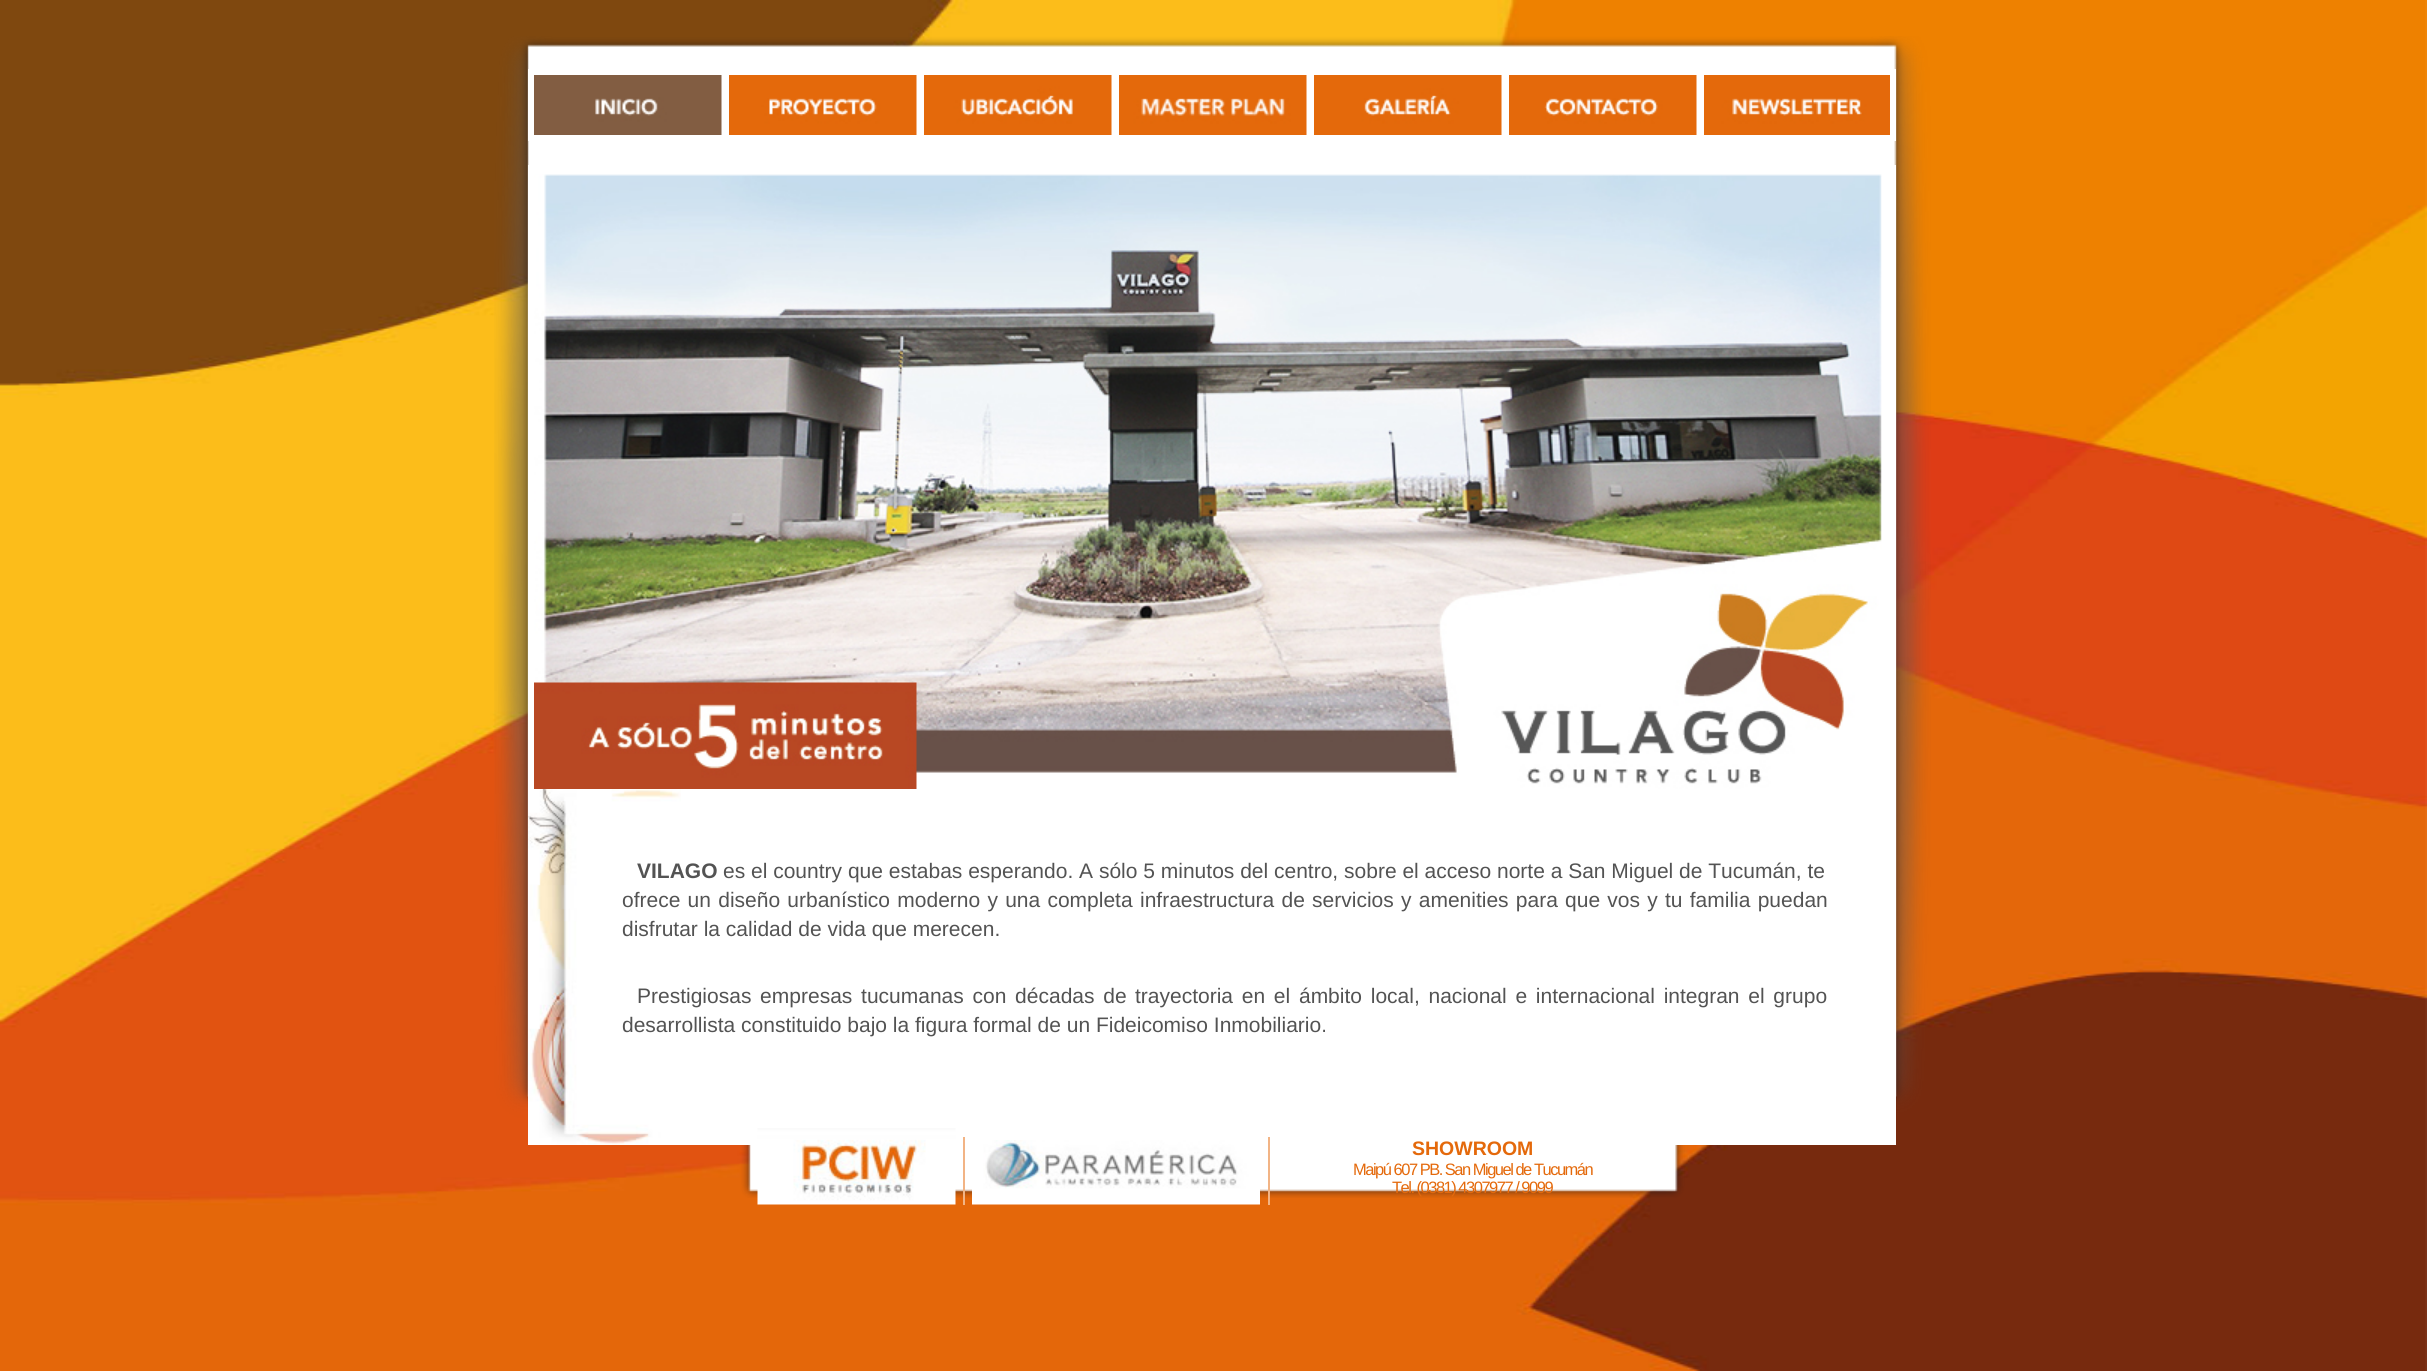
#include <cairo.h>
#include <math.h>
#include <stddef.h>


static void set_color(cairo_t *cr, unsigned color) {
    cairo_set_source_rgb(cr, (color >> 16) / 255.0, (color >> 8 & 255) / 255.0, (color & 255) / 255.0);
}

static void draw_text(cairo_t *cr, double x, double y, const char *s, const char *family, double size, int italic, int bold, unsigned color) {
    cairo_select_font_face(cr, family, italic ? CAIRO_FONT_SLANT_ITALIC : CAIRO_FONT_SLANT_NORMAL,
        bold ? CAIRO_FONT_WEIGHT_BOLD : CAIRO_FONT_WEIGHT_NORMAL);
    cairo_set_font_size(cr, size);
    set_color(cr, color);
    cairo_move_to(cr, x, y);
    cairo_show_text(cr, s);
}

static void draw_spaced(cairo_t *cr, double x, double y, const char *s, double letter, double word) {
    cairo_move_to(cr, x, y);
    while (*s) {
        char ch[5] = {0};
        int n = 0;
        do ch[n++] = *s++; while ((*s & 0xC0) == 0x80);
        cairo_show_text(cr, ch);
        cairo_rel_move_to(cr, letter + word * (*ch == ' '), 0);
    }
}

static void fill_rect(cairo_t *cr, double x, double y, double w, double h, unsigned color) {
    set_color(cr, color);
    cairo_rectangle(cr, x, y, w, h);
    cairo_fill(cr);
}

static void draw_image(cairo_t *cr, const char *path, double x, double y, double w, double h) {
    cairo_surface_t *image = cairo_image_surface_create_from_png(path);
    cairo_save(cr);
    cairo_set_source_surface(cr, image, x, y);
    cairo_rectangle(cr, x, y, w, h);
    cairo_fill(cr);
    cairo_restore(cr);
    cairo_surface_destroy(image);
}

int main(void) {
    cairo_surface_t *surface = cairo_image_surface_create(CAIRO_FORMAT_RGB24, 2427, 1371);
    cairo_t *cr = cairo_create(surface);
    cairo_font_options_t *options = cairo_font_options_create();
    cairo_font_options_set_hint_metrics(options, CAIRO_HINT_METRICS_OFF);
    cairo_font_options_set_hint_style(options, CAIRO_HINT_STYLE_NONE);
    cairo_set_font_options(cr, options);
    cairo_set_miter_limit(cr, 4);
    set_color(cr, 0xFFFFFF);
    cairo_paint(cr);
    draw_image(cr, "assets/img1.png", 0, 0, 2427, 1371);
    draw_image(cr, "assets/img2.png", 494, 36, 1437, 1162);
    fill_rect(cr, 528, 69, 1368, 72, 0xFFFFFF);
    draw_image(cr, "assets/img3.png", 534, 75, 188, 60);
    draw_image(cr, "assets/img4.png", 729, 75, 188, 60);
    draw_image(cr, "assets/img5.png", 924, 75, 188, 60);
    draw_image(cr, "assets/img6.png", 1119, 75, 188, 60);
    draw_image(cr, "assets/img7.png", 1314, 75, 188, 60);
    draw_image(cr, "assets/img8.png", 1509, 75, 188, 60);
    draw_image(cr, "assets/img9.png", 1704, 75, 186, 60);
    fill_rect(cr, 528, 165, 1368, 980, 0xFFFFFF);
    draw_image(cr, "assets/img10.png", 534, 174, 1348, 615);
    draw_image(cr, "assets/img11.png", 528, 789, 153, 356);
    draw_text(cr, 637, 878, "VILAGO", "Liberation Sans", 21, 0, 1, 0x535353);
    draw_text(cr, 723, 878, "es el country que estabas esperando. A sólo 5 minutos del centro, sobre el acceso norte a San Miguel de Tucumán, te", "Liberation Sans", 21, 0, 0, 0x535353);
    draw_spaced(cr, 622, 907, "ofrece un diseño urbanístico moderno y una completa", 0, 1.4);
    draw_spaced(cr, 1140, 907, "infraestructura de servicios y amenities para que vos y tu familia puedan", 0, 1.4);
    draw_text(cr, 622, 936, "disfrutar la calidad de vida que merecen.", "Liberation Sans", 21, 0, 0, 0x535353);
    draw_spaced(cr, 637, 1003, "Prestigiosas empresas tucumanas con décadas de", 0, 2.9);
    draw_spaced(cr, 1135, 1003, "trayectoria en el ámbito local, nacional e internacional integran el grupo", 0, 2.9);
    draw_text(cr, 622, 1032, "desarrollista constituido bajo la figura formal de un Fideicomiso Inmobiliario.", "Liberation Sans", 21, 0, 0, 0x535353);
    draw_image(cr, "assets/img12.png", 757, 1128, 199, 77);
    fill_rect(cr, 963, 1137, 2, 68, 0xF2B485);
    draw_image(cr, "assets/img13.png", 972, 1140, 288, 65);
    fill_rect(cr, 1268, 1137, 2, 68, 0xF2B485);
    draw_text(cr, 1412, 1155, "SHOWROOM", "Liberation Sans", 19.5, 0, 1, 0xE4690B);
    cairo_select_font_face(cr, "Liberation Sans", CAIRO_FONT_SLANT_NORMAL, CAIRO_FONT_WEIGHT_NORMAL);
    cairo_set_font_size(cr, 16.5);
    draw_spaced(cr, 1353, 1175, "Maipú 607 PB. San Miguel de Tucumán", -1.5, 0);
    draw_spaced(cr, 1392, 1193, "Tel. (0381) 4307977 / 9099", -1.5, 0);
    cairo_surface_write_to_png(surface, "output.png");
    cairo_font_options_destroy(options);
    cairo_destroy(cr);
    cairo_surface_destroy(surface);
    return 0;
}
